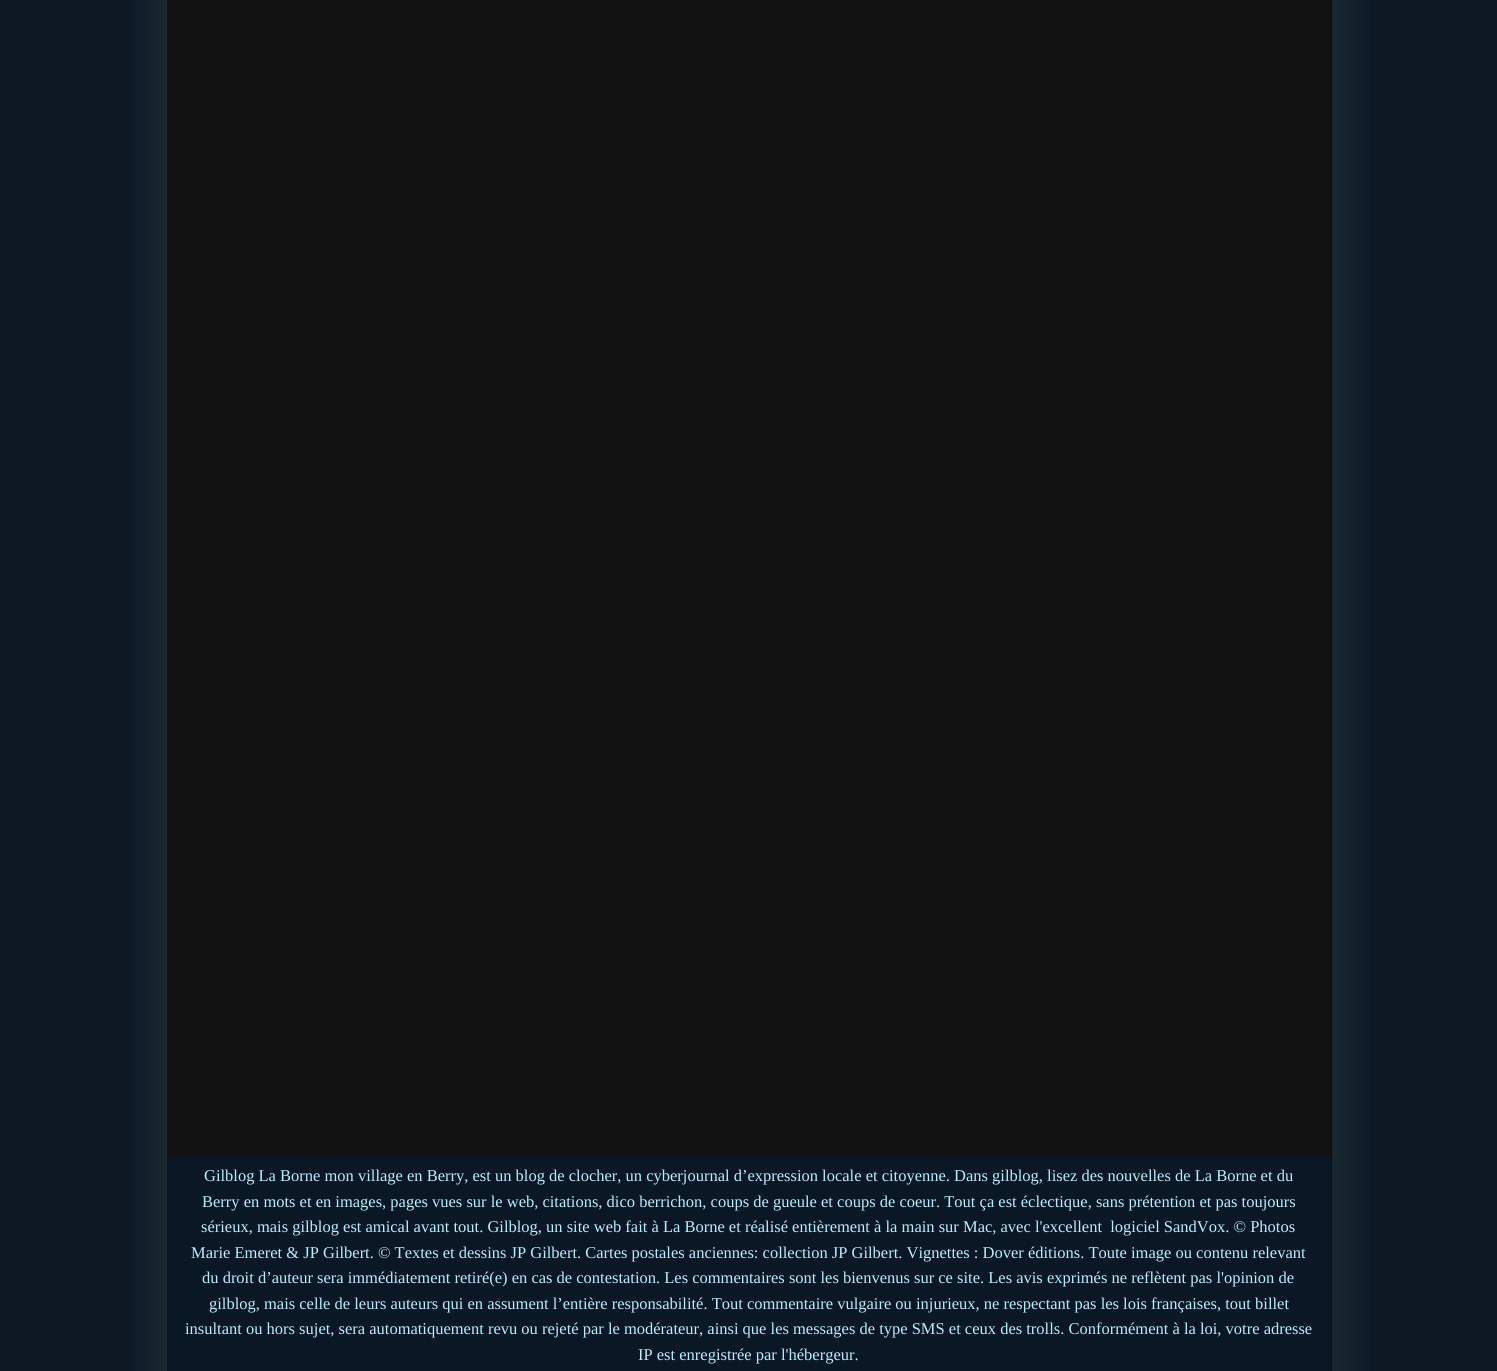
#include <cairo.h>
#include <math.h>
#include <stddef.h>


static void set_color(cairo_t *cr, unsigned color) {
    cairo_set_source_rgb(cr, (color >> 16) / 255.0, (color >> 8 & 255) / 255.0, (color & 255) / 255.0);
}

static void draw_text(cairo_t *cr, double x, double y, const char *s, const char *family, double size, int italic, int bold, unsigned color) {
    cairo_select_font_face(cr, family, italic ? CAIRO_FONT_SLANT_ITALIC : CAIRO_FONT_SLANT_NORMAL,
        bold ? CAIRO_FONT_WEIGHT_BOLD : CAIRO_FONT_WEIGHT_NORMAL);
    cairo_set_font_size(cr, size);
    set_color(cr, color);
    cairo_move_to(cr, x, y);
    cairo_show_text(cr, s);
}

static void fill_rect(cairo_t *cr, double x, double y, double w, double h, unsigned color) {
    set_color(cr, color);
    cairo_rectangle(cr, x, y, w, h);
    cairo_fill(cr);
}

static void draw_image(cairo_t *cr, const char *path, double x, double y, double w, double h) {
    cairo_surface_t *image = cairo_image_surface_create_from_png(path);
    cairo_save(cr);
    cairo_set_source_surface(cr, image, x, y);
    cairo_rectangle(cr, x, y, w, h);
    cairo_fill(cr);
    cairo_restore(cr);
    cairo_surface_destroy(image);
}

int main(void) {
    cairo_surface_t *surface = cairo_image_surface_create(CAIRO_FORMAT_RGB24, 1497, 1371);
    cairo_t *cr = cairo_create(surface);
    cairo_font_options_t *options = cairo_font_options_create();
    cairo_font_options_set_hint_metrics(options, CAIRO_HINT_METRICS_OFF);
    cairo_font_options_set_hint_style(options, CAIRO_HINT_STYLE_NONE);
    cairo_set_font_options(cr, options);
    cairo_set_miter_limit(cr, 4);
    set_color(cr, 0x0E1824);
    cairo_paint(cr);
    draw_image(cr, "assets/img1.png", 129, 0, 1242, 1371);
    fill_rect(cr, 167, 0, 1164, 1157, 0x121212);
    fill_rect(cr, 167, 1157, 1164, 214, 0x0A1725);
    draw_text(cr, 204, 1181, "Gilblog La Borne mon village en Berry, est un blog de clocher, un cyberjournal d’expression locale et citoyenne. Dans gilblog, lisez des nouvelles de La Borne et du", "Liberation Serif", 16.5, 0, 0, 0xB8EEFE);
    draw_text(cr, 202, 1207, "Berry en mots et en images, pages vues sur le web, citations, dico berrichon, coups de gueule et coups de coeur. Tout ça est éclectique, sans prétention et pas toujours", "Liberation Serif", 16.5, 0, 0, 0xB8EEFE);
    draw_text(cr, 201, 1232, "sérieux, mais gilblog est amical avant tout. Gilblog, un site web fait à La Borne et réalisé entièrement à la main sur Mac, avec l'excellent  logiciel SandVox. © Photos", "Liberation Serif", 16.5, 0, 0, 0xB8EEFE);
    draw_text(cr, 191, 1258, "Marie Emeret & JP Gilbert. © Textes et dessins JP Gilbert. Cartes postales anciennes: collection JP Gilbert. Vignettes : Dover éditions. Toute image ou contenu relevant", "Liberation Serif", 16.5, 0, 0, 0xB8EEFE);
    draw_text(cr, 202, 1283, "du droit d’auteur sera immédiatement retiré(e) en cas de contestation. Les commentaires sont les bienvenus sur ce site. Les avis exprimés ne reflètent pas l'opinion de", "Liberation Serif", 16.5, 0, 0, 0xB8EEFE);
    draw_text(cr, 209, 1309, "gilblog, mais celle de leurs auteurs qui en assument l’entière responsabilité. Tout commentaire vulgaire ou injurieux, ne respectant pas les lois françaises, tout billet", "Liberation Serif", 16.5, 0, 0, 0xB8EEFE);
    draw_text(cr, 185, 1334, "insultant ou hors sujet, sera automatiquement revu ou rejeté par le modérateur, ainsi que les messages de type SMS et ceux des trolls. Conformément à la loi, votre adresse", "Liberation Serif", 16.5, 0, 0, 0xB8EEFE);
    draw_text(cr, 638, 1360, "IP est enregistrée par l'hébergeur.", "Liberation Serif", 16.5, 0, 0, 0xB8EEFE);
    cairo_surface_write_to_png(surface, "output.png");
    cairo_font_options_destroy(options);
    cairo_destroy(cr);
    cairo_surface_destroy(surface);
    return 0;
}
